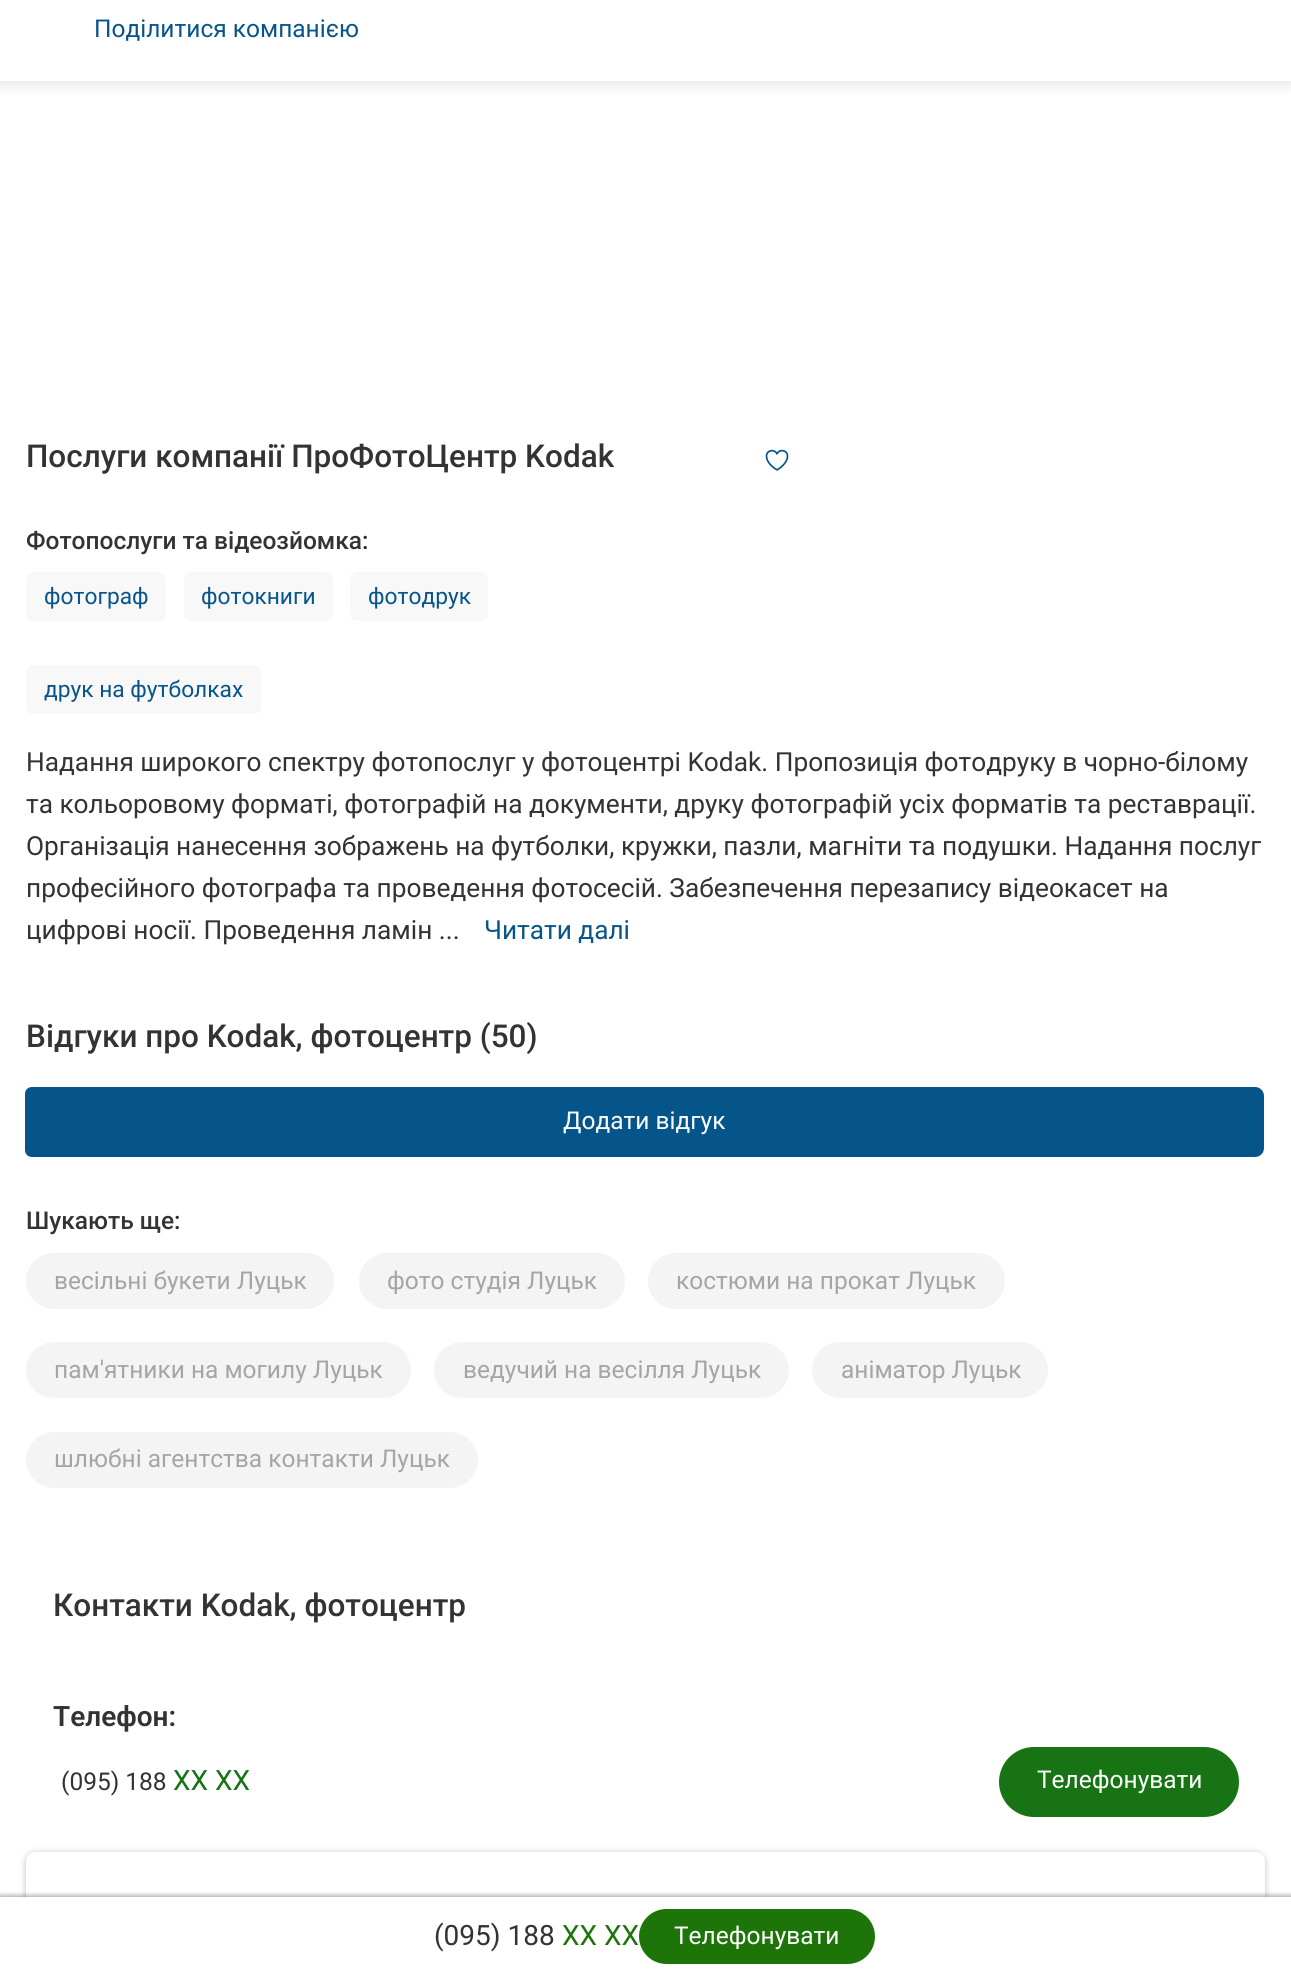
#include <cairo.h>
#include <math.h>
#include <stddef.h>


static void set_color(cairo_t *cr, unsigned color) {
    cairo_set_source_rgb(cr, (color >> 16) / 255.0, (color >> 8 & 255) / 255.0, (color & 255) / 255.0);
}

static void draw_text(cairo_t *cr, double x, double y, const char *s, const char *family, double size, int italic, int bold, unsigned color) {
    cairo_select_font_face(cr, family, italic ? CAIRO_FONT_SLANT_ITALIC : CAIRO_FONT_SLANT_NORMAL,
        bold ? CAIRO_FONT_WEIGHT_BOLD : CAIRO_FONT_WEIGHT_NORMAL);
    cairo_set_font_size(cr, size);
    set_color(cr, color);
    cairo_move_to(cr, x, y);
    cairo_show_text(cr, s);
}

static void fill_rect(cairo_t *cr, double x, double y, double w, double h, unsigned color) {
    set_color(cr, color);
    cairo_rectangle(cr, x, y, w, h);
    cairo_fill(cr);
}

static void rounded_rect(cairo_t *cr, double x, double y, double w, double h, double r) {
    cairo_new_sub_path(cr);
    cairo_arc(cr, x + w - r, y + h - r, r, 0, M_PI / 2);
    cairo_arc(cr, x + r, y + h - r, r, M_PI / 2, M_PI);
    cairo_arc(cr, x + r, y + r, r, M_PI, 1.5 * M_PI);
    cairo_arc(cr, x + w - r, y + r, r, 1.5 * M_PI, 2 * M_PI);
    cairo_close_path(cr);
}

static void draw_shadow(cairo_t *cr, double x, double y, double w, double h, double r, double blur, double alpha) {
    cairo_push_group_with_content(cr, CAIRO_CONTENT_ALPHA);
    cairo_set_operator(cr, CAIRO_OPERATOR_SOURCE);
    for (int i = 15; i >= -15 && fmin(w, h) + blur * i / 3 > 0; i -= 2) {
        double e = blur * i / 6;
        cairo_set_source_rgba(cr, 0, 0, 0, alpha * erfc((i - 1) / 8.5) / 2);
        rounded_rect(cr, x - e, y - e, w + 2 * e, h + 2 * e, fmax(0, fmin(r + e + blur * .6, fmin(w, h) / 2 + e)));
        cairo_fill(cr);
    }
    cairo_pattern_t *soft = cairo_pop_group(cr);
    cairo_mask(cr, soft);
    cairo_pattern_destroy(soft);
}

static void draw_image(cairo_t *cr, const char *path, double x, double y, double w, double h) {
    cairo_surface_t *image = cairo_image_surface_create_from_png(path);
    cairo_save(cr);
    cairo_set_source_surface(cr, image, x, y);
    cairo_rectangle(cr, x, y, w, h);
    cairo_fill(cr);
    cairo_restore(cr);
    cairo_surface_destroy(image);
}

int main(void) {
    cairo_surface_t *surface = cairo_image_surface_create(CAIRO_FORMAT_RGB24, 1291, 1975);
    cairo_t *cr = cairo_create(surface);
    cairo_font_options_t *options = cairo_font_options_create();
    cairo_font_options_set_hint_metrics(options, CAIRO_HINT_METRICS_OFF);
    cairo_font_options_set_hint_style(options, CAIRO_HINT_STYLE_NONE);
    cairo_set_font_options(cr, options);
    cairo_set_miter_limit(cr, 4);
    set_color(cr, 0xFFFFFF);
    cairo_paint(cr);
    cairo_save(cr);
    cairo_set_fill_rule(cr, CAIRO_FILL_RULE_EVEN_ODD);
    cairo_new_path(cr);
    cairo_move_to(cr, 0, 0);
    cairo_line_to(cr, 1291, 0);
    cairo_line_to(cr, 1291, 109);
    cairo_line_to(cr, 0, 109);
    cairo_close_path(cr);
    cairo_move_to(cr, 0, -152);
    cairo_line_to(cr, 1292, -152);
    cairo_line_to(cr, 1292, 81);
    cairo_line_to(cr, 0, 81);
    cairo_close_path(cr);
    cairo_clip(cr);
    set_color(cr, 0x000000);
    draw_shadow(cr, 0, -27, 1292, 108, 0, 9, 0.15);
    cairo_restore(cr);
    draw_text(cr, 94, 37, "Поділитися компанією", "Roboto", 24.5, 0, 0, 0x07558A);
    draw_text(cr, 26, 467, "Послуги компанії ПроФотоЦентр Kodak", "Roboto Medium", 31.5, 0, 0, 0x333333);
    draw_image(cr, "assets/img1.png", 765, 449, 24, 22);
    set_color(cr, 0x000000);
    draw_shadow(cr, 26, 1853, 1239, 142, 9, 3.5, 0.25);
    set_color(cr, 0xFFFFFF);
    rounded_rect(cr, 26, 1852, 1239, 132, 9);
    cairo_fill(cr);
    set_color(cr, 0x000000);
    draw_shadow(cr, 0, 1895, 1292, 79, 0, 2, 0.3);
    fill_rect(cr, 0, 1897, 1291, 78, 0xFFFFFF);
    draw_text(cr, 434, 1945, "(095) 188", "Roboto", 28, 0, 0, 0x333333);
    draw_text(cr, 562, 1945, "XX XX", "Roboto", 28, 0, 0, 0x1D7509);
    rounded_rect(cr, 639, 1909, 236, 55, 27.5);
    cairo_fill(cr);
    draw_text(cr, 674, 1944, "Телефонувати", "Roboto", 24.5, 0, 0, 0xFFFFFF);
    draw_text(cr, 26, 549, "Фотопослуги та відеозйомка:", "Roboto Medium", 24.5, 0, 0, 0x333333);
    set_color(cr, 0xF8F8F8);
    rounded_rect(cr, 26, 572, 140, 49, 7);
    cairo_fill(cr);
    draw_text(cr, 44, 604, "фотограф", "Roboto", 22.75, 0, 0, 0x07558A);
    set_color(cr, 0xF8F8F8);
    rounded_rect(cr, 184, 572, 149, 49, 7);
    cairo_fill(cr);
    draw_text(cr, 201, 604, "фотокниги", "Roboto", 22.75, 0, 0, 0x07558A);
    set_color(cr, 0xF8F8F8);
    rounded_rect(cr, 350, 572, 138, 49, 7);
    cairo_fill(cr);
    draw_text(cr, 368, 604, "фотодрук", "Roboto", 22.75, 0, 0, 0x07558A);
    set_color(cr, 0xF8F8F8);
    rounded_rect(cr, 26, 665, 235, 49, 7);
    cairo_fill(cr);
    draw_text(cr, 44, 697, "друк на футболках", "Roboto", 22.75, 0, 0, 0x07558A);
    draw_text(cr, 26, 771, "Надання широкого спектру фотопослуг у фотоцентрі Kodak. Пропозиція фотодруку в чорно-білому", "Roboto", 26.25, 0, 0, 0x333333);
    draw_text(cr, 26, 813, "та кольоровому форматі, фотографій на документи, друку фотографій усіх форматів та реставрації.", "Roboto", 26.25, 0, 0, 0x333333);
    draw_text(cr, 26, 855, "Організація нанесення зображень на футболки, кружки, пазли, магніти та подушки. Надання послуг", "Roboto", 26.25, 0, 0, 0x333333);
    draw_text(cr, 26, 897, "професійного фотографа та проведення фотосесій. Забезпечення перезапису відеокасет на", "Roboto", 26.25, 0, 0, 0x333333);
    draw_text(cr, 26, 939, "цифрові носії. Проведення ламін ...", "Roboto", 26.25, 0, 0, 0x333333);
    draw_text(cr, 484, 939, "Читати далі", "Roboto", 26.25, 0, 0, 0x07558A);
    draw_text(cr, 26, 1047, "Відгуки про Kodak, фотоцентр (50)", "Roboto Medium", 31.5, 0, 0, 0x333333);
    set_color(cr, 0x05558A);
    cairo_new_path(cr);
    cairo_move_to(cr, 32, 1088);
    cairo_line_to(cr, 1255, 1088);
    cairo_curve_to(cr, 1259.5, 1088, 1263, 1091.5, 1263, 1096);
    cairo_line_to(cr, 1263, 1148);
    cairo_curve_to(cr, 1263, 1152.5, 1259.5, 1156, 1255, 1156);
    cairo_line_to(cr, 32, 1156);
    cairo_curve_to(cr, 28.5, 1156, 26, 1153.5, 26, 1150);
    cairo_line_to(cr, 26, 1094);
    cairo_curve_to(cr, 26, 1090.5, 28.5, 1088, 32, 1088);
    cairo_close_path(cr);
    cairo_fill_preserve(cr);
    cairo_stroke(cr);
    draw_text(cr, 563, 1129, "Додати відгук", "Roboto", 24.5, 0, 0, 0xFFFFFF);
    draw_text(cr, 26, 1229, "Шукають ще:", "Roboto Medium", 24.5, 0, 0, 0x333333);
    set_color(cr, 0xF4F4F4);
    rounded_rect(cr, 26, 1253, 308, 56, 28);
    cairo_fill(cr);
    draw_text(cr, 54, 1289, "весільні букети Луцьк", "Roboto", 24.5, 0, 0, 0xA5A5A5);
    set_color(cr, 0xF4F4F4);
    rounded_rect(cr, 359, 1253, 266, 56, 28);
    cairo_fill(cr);
    draw_text(cr, 387, 1289, "фото студія Луцьк", "Roboto", 24.5, 0, 0, 0xA5A5A5);
    set_color(cr, 0xF4F4F4);
    rounded_rect(cr, 648, 1253, 357, 56, 28);
    cairo_fill(cr);
    draw_text(cr, 676, 1289, "костюми на прокат Луцьк", "Roboto", 24.5, 0, 0, 0xA5A5A5);
    set_color(cr, 0xF4F4F4);
    rounded_rect(cr, 26, 1342, 385, 56, 28);
    cairo_fill(cr);
    draw_text(cr, 54, 1378, "пам'ятники на могилу Луцьк", "Roboto", 24.5, 0, 0, 0xA5A5A5);
    set_color(cr, 0xF4F4F4);
    rounded_rect(cr, 434, 1342, 355, 56, 28);
    cairo_fill(cr);
    draw_text(cr, 463, 1378, "ведучий на весілля Луцьк", "Roboto", 24.5, 0, 0, 0xA5A5A5);
    set_color(cr, 0xF4F4F4);
    rounded_rect(cr, 812, 1342, 236, 56, 28);
    cairo_fill(cr);
    draw_text(cr, 841, 1378, "аніматор Луцьк", "Roboto", 24.5, 0, 0, 0xA5A5A5);
    set_color(cr, 0xF4F4F4);
    rounded_rect(cr, 26, 1432, 452, 56, 28);
    cairo_fill(cr);
    draw_text(cr, 54, 1467, "шлюбні агентства контакти Луцьк", "Roboto", 24.5, 0, 0, 0xA5A5A5);
    draw_text(cr, 53, 1616, "Контакти Kodak, фотоцентр", "Roboto Medium", 31.5, 0, 0, 0x333333);
    draw_text(cr, 53, 1726, "Телефон:", "Roboto SemiBold", 28, 0, 0, 0x333333);
    draw_text(cr, 61, 1790, "(095) 188", "Roboto", 24.5, 0, 0, 0x333333);
    draw_text(cr, 173, 1790, "XX XX", "Roboto", 28, 0, 0, 0x177313);
    rounded_rect(cr, 1000, 1748, 238, 68, 34);
    cairo_fill_preserve(cr);
    cairo_stroke(cr);
    draw_text(cr, 1037, 1788, "Телефонувати", "Roboto", 24.5, 0, 0, 0xFFFFFF);
    cairo_surface_write_to_png(surface, "output.png");
    cairo_font_options_destroy(options);
    cairo_destroy(cr);
    cairo_surface_destroy(surface);
    return 0;
}
